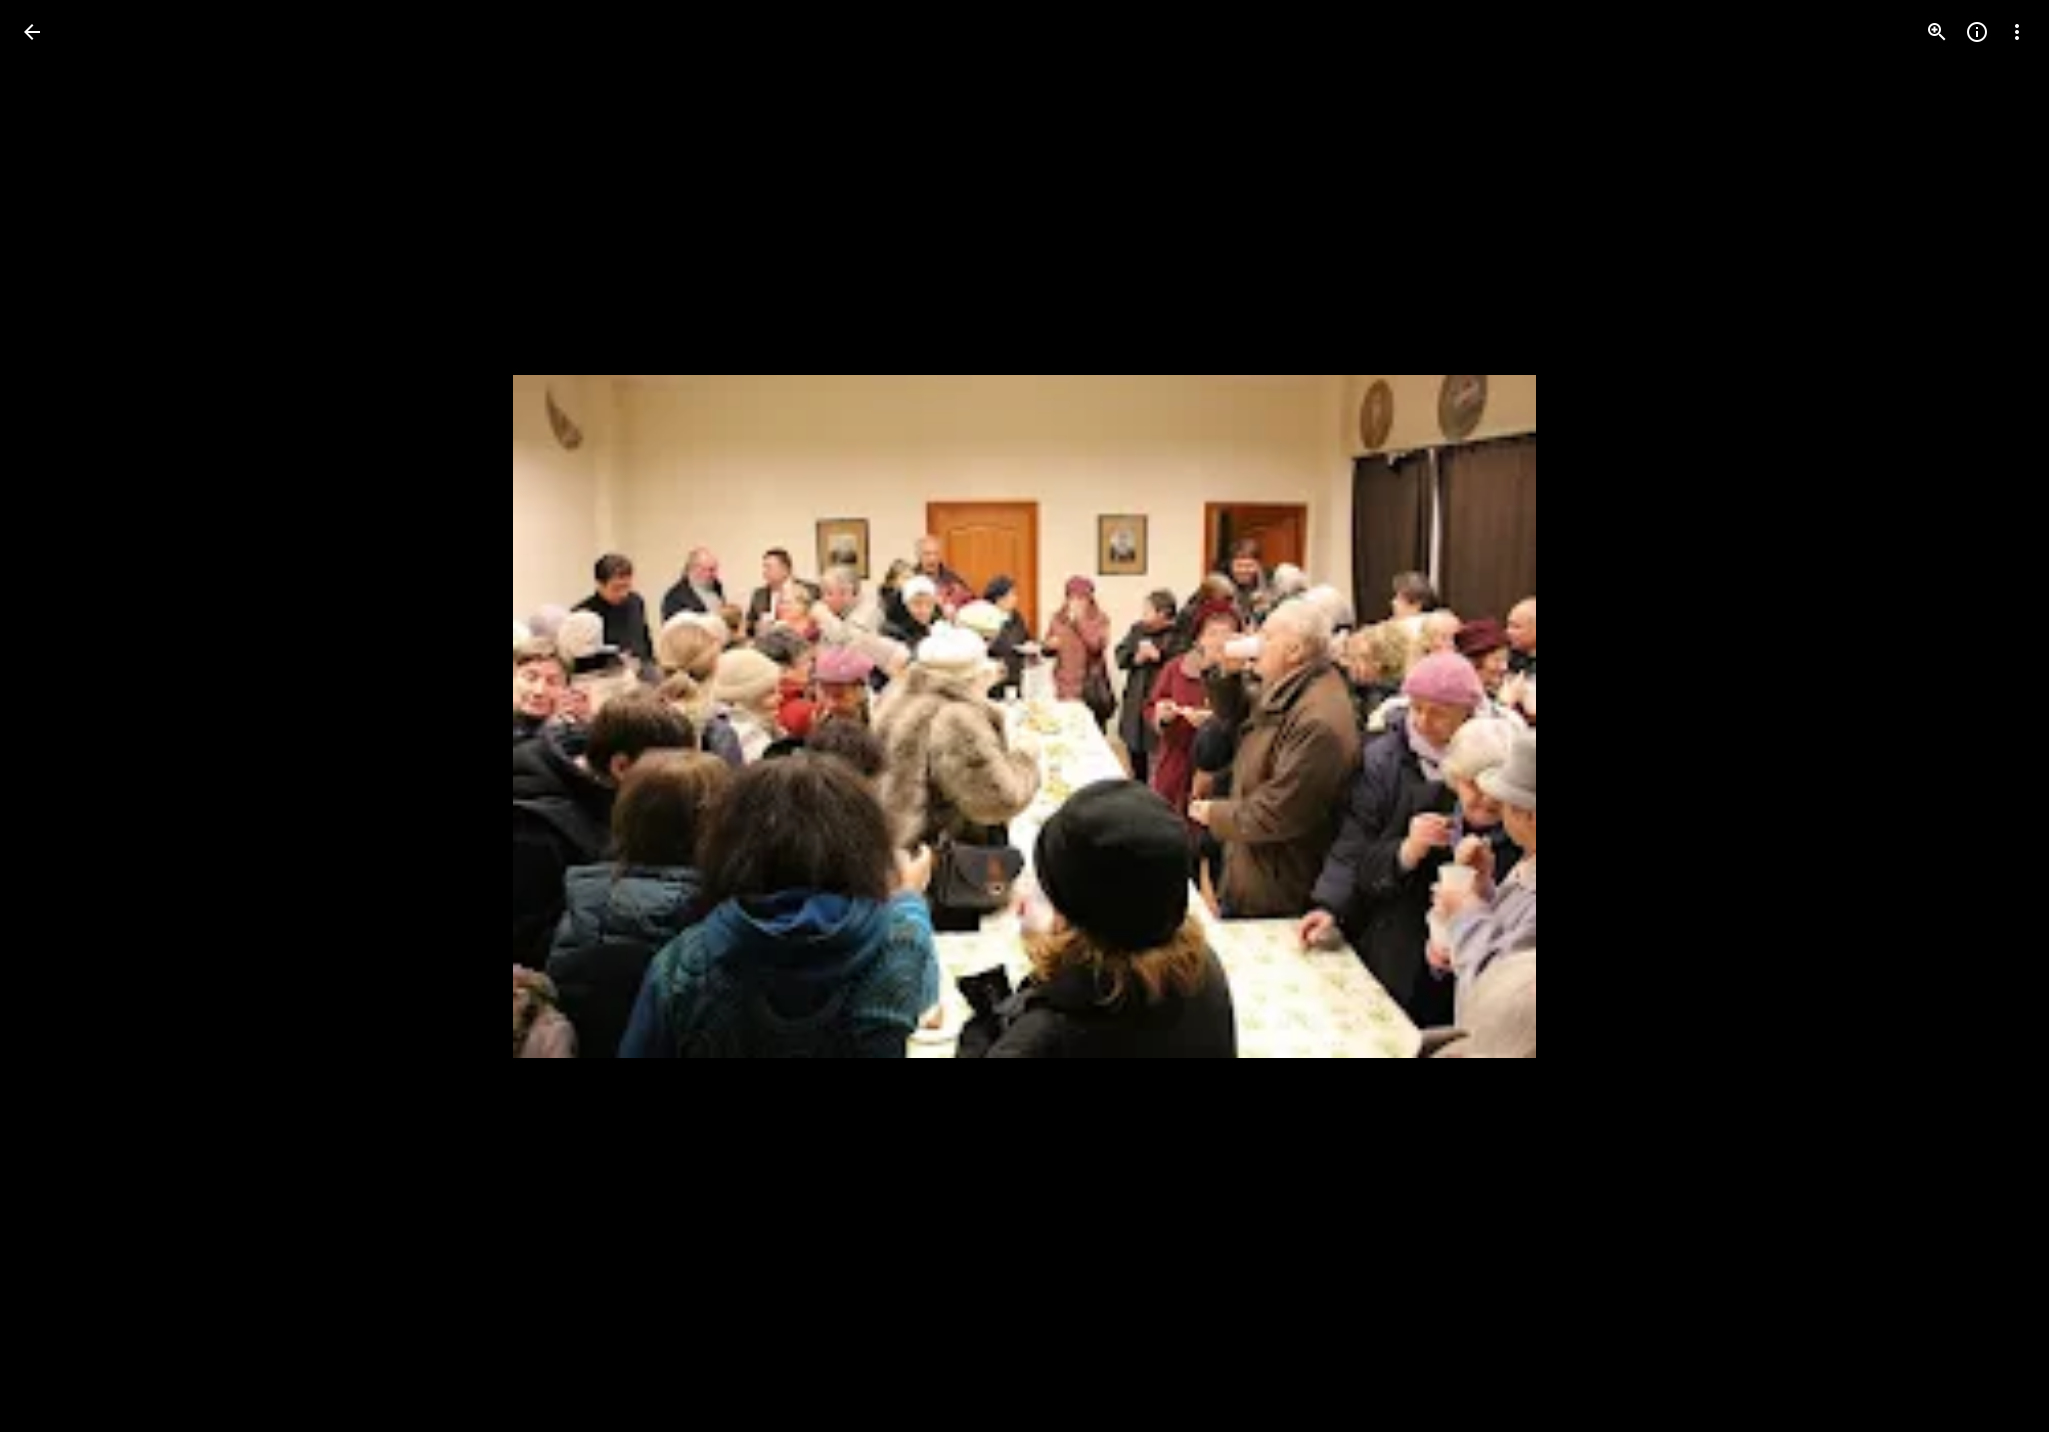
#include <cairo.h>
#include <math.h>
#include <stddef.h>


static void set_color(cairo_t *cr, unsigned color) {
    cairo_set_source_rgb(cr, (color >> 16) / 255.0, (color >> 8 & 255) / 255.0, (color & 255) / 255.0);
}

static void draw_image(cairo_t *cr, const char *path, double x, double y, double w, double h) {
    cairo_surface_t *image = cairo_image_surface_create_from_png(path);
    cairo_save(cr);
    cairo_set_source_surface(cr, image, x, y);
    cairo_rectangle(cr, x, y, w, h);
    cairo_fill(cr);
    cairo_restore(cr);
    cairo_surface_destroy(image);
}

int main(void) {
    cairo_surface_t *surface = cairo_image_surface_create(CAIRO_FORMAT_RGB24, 2049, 1432);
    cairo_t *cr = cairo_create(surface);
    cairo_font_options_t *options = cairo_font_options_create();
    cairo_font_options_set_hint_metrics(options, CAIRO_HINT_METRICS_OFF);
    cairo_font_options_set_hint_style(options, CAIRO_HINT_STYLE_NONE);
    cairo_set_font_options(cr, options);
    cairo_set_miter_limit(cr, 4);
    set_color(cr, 0x000000);
    cairo_paint(cr);
    draw_image(cr, "assets/img1.png", 24, 24, 16, 16);
    draw_image(cr, "assets/img2.png", 1928, 23, 18, 18);
    draw_image(cr, "assets/img3.png", 1967, 22, 20, 20);
    draw_image(cr, "assets/img4.png", 2015, 24, 4, 16);
    draw_image(cr, "assets/img5.png", 513, 375, 1023, 683);
    cairo_surface_write_to_png(surface, "output.png");
    cairo_font_options_destroy(options);
    cairo_destroy(cr);
    cairo_surface_destroy(surface);
    return 0;
}
